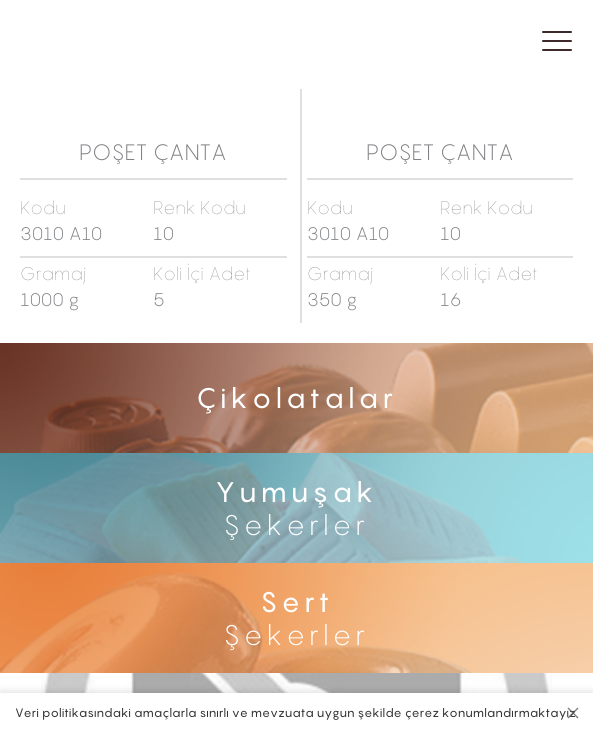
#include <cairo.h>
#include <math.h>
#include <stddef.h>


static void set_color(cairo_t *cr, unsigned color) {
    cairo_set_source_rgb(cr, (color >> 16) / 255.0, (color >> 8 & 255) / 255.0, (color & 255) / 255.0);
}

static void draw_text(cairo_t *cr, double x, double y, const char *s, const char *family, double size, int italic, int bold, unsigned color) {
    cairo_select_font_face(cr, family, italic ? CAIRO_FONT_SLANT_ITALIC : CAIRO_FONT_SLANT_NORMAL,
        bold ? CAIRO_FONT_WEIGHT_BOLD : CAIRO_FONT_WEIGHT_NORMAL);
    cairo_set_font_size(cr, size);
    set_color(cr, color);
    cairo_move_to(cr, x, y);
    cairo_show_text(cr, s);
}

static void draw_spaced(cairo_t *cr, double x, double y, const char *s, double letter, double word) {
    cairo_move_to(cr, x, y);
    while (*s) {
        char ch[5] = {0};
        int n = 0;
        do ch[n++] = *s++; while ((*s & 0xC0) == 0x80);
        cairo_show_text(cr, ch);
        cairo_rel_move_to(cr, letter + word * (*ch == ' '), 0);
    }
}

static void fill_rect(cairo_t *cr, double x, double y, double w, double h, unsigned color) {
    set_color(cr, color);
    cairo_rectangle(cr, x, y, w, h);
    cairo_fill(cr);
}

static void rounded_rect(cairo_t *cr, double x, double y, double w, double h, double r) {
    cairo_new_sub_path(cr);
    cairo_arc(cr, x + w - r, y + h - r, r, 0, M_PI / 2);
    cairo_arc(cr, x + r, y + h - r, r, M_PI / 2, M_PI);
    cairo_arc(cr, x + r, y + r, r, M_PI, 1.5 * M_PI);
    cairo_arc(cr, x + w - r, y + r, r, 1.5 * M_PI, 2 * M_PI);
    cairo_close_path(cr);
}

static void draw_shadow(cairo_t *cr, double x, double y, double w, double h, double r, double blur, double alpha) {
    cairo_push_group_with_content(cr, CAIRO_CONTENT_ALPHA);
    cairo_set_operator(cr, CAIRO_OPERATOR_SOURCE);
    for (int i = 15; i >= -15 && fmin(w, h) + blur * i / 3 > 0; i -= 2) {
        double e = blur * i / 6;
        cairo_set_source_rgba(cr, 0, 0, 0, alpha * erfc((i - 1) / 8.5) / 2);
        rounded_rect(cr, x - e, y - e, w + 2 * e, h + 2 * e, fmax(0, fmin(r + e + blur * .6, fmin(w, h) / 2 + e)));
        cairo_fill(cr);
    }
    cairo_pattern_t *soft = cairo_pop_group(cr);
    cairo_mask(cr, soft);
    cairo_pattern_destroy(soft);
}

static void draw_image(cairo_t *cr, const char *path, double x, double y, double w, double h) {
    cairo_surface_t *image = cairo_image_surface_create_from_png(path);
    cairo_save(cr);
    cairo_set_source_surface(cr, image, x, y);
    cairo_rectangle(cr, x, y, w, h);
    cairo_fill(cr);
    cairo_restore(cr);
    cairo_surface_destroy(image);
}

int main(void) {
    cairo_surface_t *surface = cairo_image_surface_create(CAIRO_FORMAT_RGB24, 593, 733);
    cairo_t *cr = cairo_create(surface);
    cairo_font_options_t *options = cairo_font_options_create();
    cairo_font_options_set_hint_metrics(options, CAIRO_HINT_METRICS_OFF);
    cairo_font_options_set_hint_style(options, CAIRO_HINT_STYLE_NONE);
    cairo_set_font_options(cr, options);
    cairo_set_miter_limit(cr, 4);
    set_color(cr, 0xFFFFFF);
    cairo_paint(cr);
    set_color(cr, 0x3D2929);
    rounded_rect(cr, 542, 31, 30, 2, 1);
    cairo_fill(cr);
    rounded_rect(cr, 542, 40, 30, 2, 1);
    cairo_fill(cr);
    rounded_rect(cr, 542, 49, 30, 2, 1);
    cairo_fill(cr);
    fill_rect(cr, 20, 178, 267, 2, 0xDFDFDF);
    draw_text(cr, 79, 160, "POŞET ÇANTA", "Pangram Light", 22, 0, 0, 0x808285);
    fill_rect(cr, 300, 89, 2, 234, 0xDFDFDF);
    draw_text(cr, 20, 214, "Kodu", "Pangram ExtraLight", 18, 0, 0, 0x808285);
    draw_text(cr, 20, 240, "3010 A10", "Pangram Light", 18, 0, 0, 0x808285);
    draw_text(cr, 153, 214, "Renk Kodu", "Pangram ExtraLight", 18, 0, 0, 0x808285);
    draw_text(cr, 153, 240, "10", "Pangram Light", 18, 0, 0, 0x808285);
    fill_rect(cr, 20, 256, 267, 2, 0xDFDFDF);
    draw_text(cr, 20, 280, "Gramaj", "Pangram ExtraLight", 18, 0, 0, 0x808285);
    draw_text(cr, 20, 306, "1000 g", "Pangram Light", 18, 0, 0, 0x808285);
    draw_text(cr, 153, 280, "Koli İçi Adet", "Pangram ExtraLight", 18, 0, 0, 0x808285);
    draw_text(cr, 153, 306, "5", "Pangram Light", 18, 0, 0, 0x808285);
    fill_rect(cr, 307, 178, 266, 2, 0xDFDFDF);
    draw_text(cr, 366, 160, "POŞET ÇANTA", "Pangram Light", 22, 0, 0, 0x808285);
    draw_text(cr, 307, 214, "Kodu", "Pangram ExtraLight", 18, 0, 0, 0x808285);
    draw_text(cr, 307, 240, "3010 A10", "Pangram Light", 18, 0, 0, 0x808285);
    draw_text(cr, 440, 214, "Renk Kodu", "Pangram ExtraLight", 18, 0, 0, 0x808285);
    draw_text(cr, 440, 240, "10", "Pangram Light", 18, 0, 0, 0x808285);
    fill_rect(cr, 307, 256, 266, 2, 0xDFDFDF);
    draw_text(cr, 307, 280, "Gramaj", "Pangram ExtraLight", 18, 0, 0, 0x808285);
    draw_text(cr, 307, 306, "350 g", "Pangram Light", 18, 0, 0, 0x808285);
    draw_text(cr, 440, 280, "Koli İçi Adet", "Pangram ExtraLight", 18, 0, 0, 0x808285);
    draw_text(cr, 440, 306, "16", "Pangram Light", 18, 0, 0, 0x808285);
    draw_image(cr, "assets/img1.png", 0, 343, 593, 110);
    cairo_select_font_face(cr, "Pangram", CAIRO_FONT_SLANT_NORMAL, CAIRO_FONT_WEIGHT_NORMAL);
    cairo_set_font_size(cr, 28);
    set_color(cr, 0xFFFFFF);
    draw_spaced(cr, 196, 408, "Çikolatalar", 4, 0);
    draw_image(cr, "assets/img2.png", 0, 453, 593, 110);
    draw_spaced(cr, 215, 502, "Yumuşak", 4, 0);
    cairo_select_font_face(cr, "Pangram Light", CAIRO_FONT_SLANT_NORMAL, CAIRO_FONT_WEIGHT_NORMAL);
    draw_spaced(cr, 223, 535, "Şekerler", 4, 0);
    draw_image(cr, "assets/img3.png", 0, 563, 593, 110);
    cairo_select_font_face(cr, "Pangram", CAIRO_FONT_SLANT_NORMAL, CAIRO_FONT_WEIGHT_NORMAL);
    draw_spaced(cr, 260, 612, "Sert", 4, 0);
    cairo_select_font_face(cr, "Pangram Light", CAIRO_FONT_SLANT_NORMAL, CAIRO_FONT_WEIGHT_NORMAL);
    draw_spaced(cr, 223, 645, "Şekerler", 4, 0);
    draw_image(cr, "assets/img4.png", 41, 673, 511, 20);
    set_color(cr, 0x000000);
    draw_shadow(cr, 0, 690, 593, 40, 0, 3, 0.09);
    fill_rect(cr, 0, 693, 593, 40, 0xFFFFFF);
    draw_text(cr, 15, 717, "Veri politikasındaki amaçlarla sınırlı ve mevzuata uygun şekilde çerez konumlandırmaktayız", "Pangram", 12, 0, 0, 0x333333);
    cairo_new_path(cr);
    cairo_move_to(cr, 568, 708);
    cairo_line_to(cr, 578, 718);
    cairo_move_to(cr, 578, 708);
    cairo_line_to(cr, 568, 718);
    cairo_set_source_rgba(cr, 0.333, 0.333, 0.333, 0.8);
    cairo_set_line_width(cr, 1.3);
    cairo_stroke(cr);
    cairo_surface_write_to_png(surface, "output.png");
    cairo_font_options_destroy(options);
    cairo_destroy(cr);
    cairo_surface_destroy(surface);
    return 0;
}
